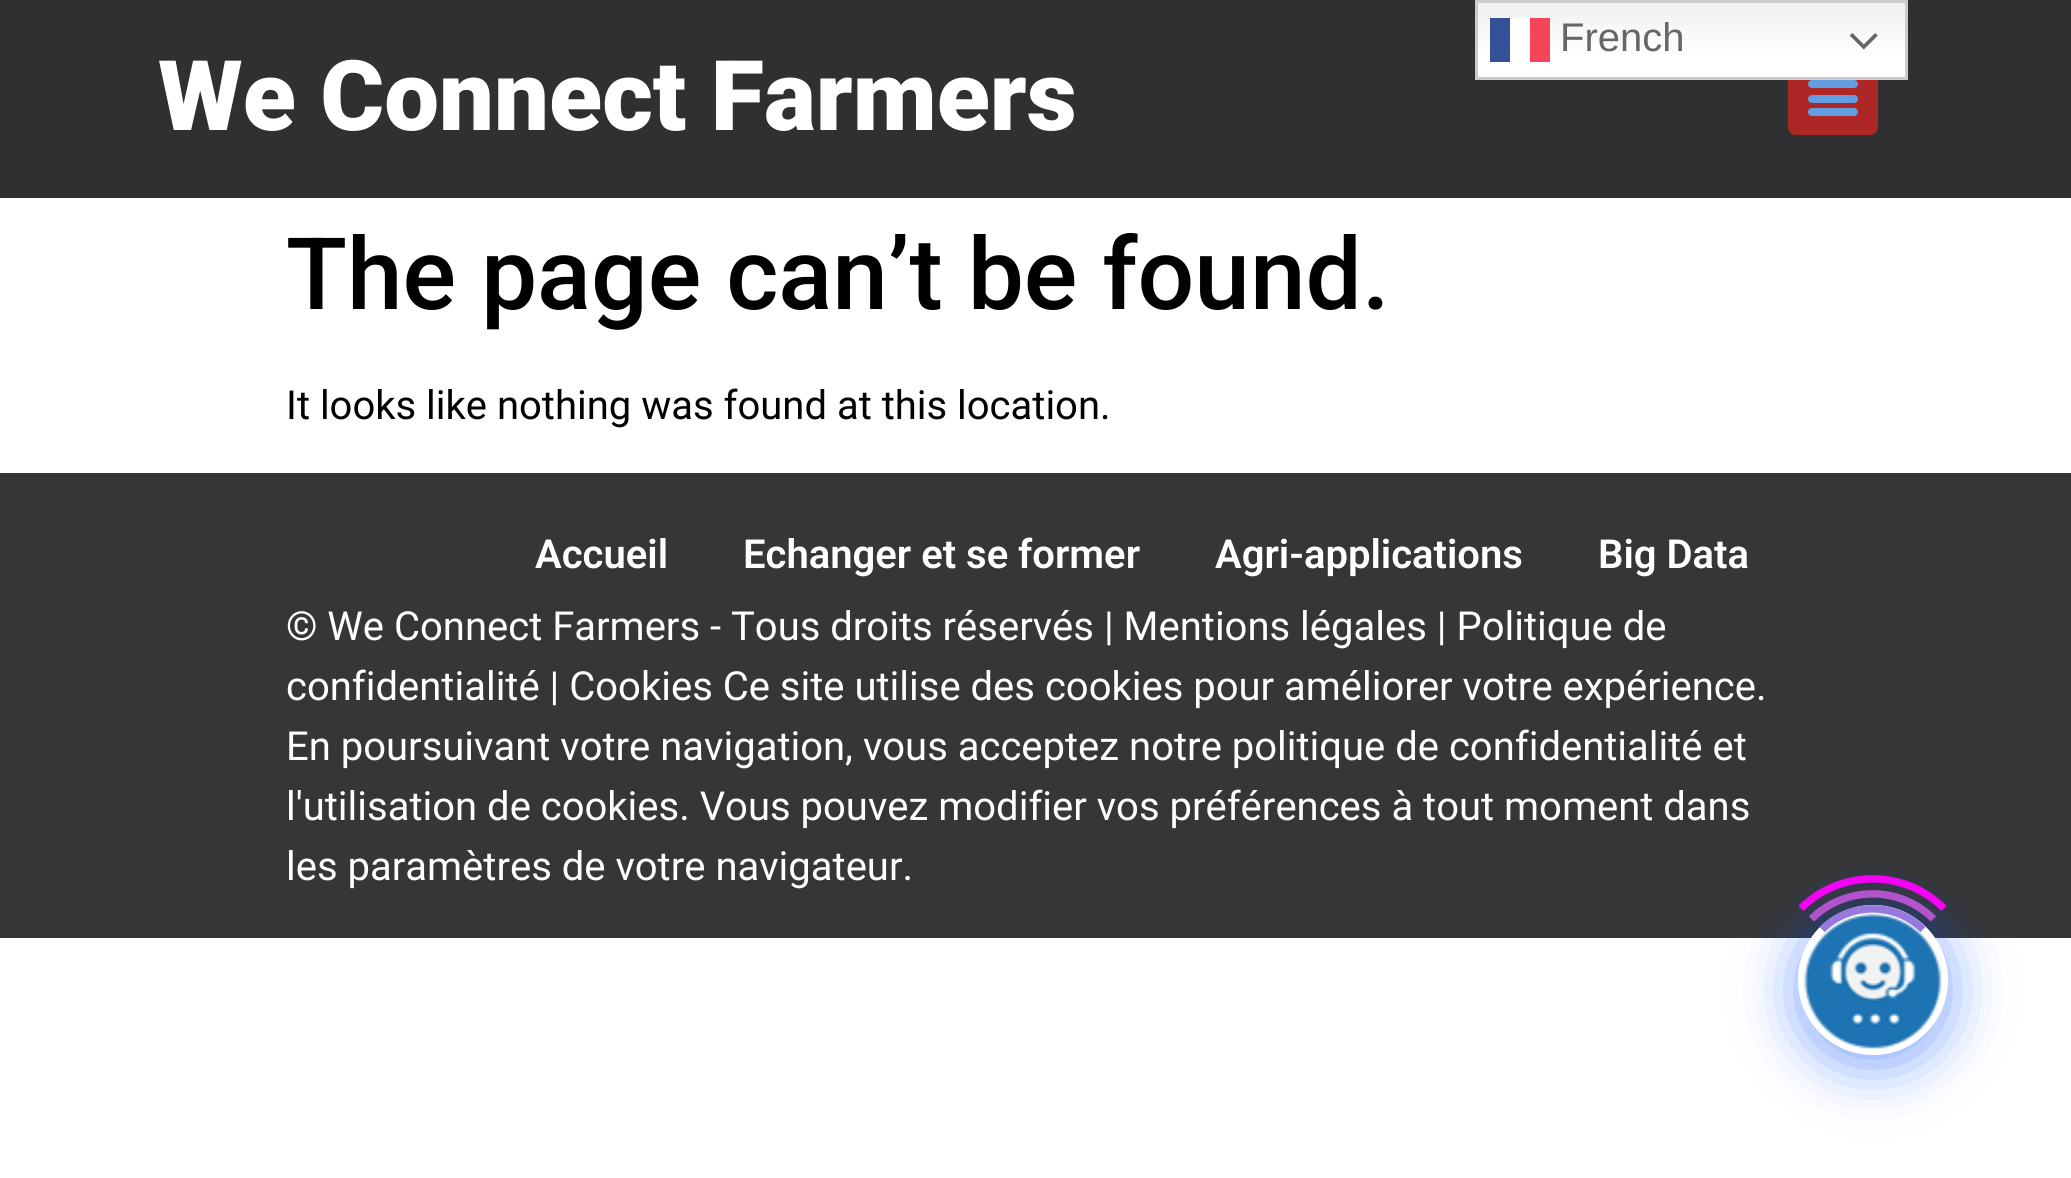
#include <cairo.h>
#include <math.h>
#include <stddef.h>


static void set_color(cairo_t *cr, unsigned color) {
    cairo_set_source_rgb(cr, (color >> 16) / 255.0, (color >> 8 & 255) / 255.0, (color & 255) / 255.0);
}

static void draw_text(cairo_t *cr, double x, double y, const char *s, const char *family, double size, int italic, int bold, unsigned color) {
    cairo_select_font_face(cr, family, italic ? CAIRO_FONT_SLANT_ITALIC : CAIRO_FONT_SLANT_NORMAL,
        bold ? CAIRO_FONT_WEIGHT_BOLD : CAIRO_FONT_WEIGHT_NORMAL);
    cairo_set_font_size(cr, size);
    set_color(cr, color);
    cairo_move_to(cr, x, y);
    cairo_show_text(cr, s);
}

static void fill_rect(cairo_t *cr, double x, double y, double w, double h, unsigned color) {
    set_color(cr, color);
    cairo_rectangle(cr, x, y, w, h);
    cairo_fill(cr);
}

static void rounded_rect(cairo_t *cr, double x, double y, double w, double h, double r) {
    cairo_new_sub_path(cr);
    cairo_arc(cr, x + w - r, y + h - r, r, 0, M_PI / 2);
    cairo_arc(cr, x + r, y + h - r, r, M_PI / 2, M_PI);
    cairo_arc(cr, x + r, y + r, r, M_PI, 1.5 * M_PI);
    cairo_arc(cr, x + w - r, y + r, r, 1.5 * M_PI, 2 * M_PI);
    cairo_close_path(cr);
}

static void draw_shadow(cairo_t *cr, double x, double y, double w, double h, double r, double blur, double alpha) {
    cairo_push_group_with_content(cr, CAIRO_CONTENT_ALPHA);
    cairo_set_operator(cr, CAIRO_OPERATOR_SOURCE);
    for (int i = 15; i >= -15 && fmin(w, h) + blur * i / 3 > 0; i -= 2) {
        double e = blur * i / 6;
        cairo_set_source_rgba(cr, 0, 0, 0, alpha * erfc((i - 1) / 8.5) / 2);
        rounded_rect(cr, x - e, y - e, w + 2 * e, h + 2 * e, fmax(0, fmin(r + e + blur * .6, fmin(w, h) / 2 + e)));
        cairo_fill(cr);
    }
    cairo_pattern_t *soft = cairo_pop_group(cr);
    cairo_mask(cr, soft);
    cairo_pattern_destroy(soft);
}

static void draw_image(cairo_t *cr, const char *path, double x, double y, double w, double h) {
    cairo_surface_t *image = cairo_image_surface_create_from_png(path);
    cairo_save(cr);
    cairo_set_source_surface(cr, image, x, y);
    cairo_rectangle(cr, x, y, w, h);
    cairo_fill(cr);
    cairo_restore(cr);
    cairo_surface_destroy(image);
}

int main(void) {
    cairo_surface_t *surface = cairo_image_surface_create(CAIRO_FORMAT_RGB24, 2071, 1178);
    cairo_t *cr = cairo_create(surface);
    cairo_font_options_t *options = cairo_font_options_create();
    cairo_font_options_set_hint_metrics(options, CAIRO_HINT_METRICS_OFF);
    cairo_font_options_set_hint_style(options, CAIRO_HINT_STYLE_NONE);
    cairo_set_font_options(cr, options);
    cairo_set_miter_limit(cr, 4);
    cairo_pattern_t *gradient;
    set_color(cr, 0xFFFFFF);
    cairo_paint(cr);
    fill_rect(cr, 0, 0, 2071, 198, 0x2E3031);
    set_color(cr, 0xAE2727);
    rounded_rect(cr, 1788, 60, 90, 75, 8);
    cairo_fill(cr);
    gradient = cairo_pattern_create_linear(1691, 0, 1691, 80);
    cairo_pattern_add_color_stop_rgba(gradient, 0, 0.937, 0.937, 0.937, 1);
    cairo_pattern_add_color_stop_rgba(gradient, 0.7, 1, 1, 1, 1);
    cairo_set_source(cr, gradient);
    cairo_pattern_destroy(gradient);
    cairo_rectangle(cr, 1478, 3, 427, 74);
    cairo_fill(cr);
    gradient = cairo_pattern_create_linear(1691, 0, 1691, 80);
    cairo_pattern_add_color_stop_rgba(gradient, 0, 0.988, 0.988, 0.988, 1);
    cairo_pattern_add_color_stop_rgba(gradient, 0.7, 1, 1, 1, 1);
    cairo_set_source(cr, gradient);
    cairo_pattern_destroy(gradient);
    cairo_rectangle(cr, 1510, 18, 20, 26);
    cairo_fill(cr);
    cairo_rectangle(cr, 1476.5, 1.5, 430, 77);
    set_color(cr, 0xCCCCCC);
    cairo_set_line_width(cr, 3);
    cairo_stroke(cr);
    fill_rect(cr, 1490, 18, 20, 44, 0x335198);
    fill_rect(cr, 1530, 18, 20, 44, 0xF54659);
    draw_text(cr, 1560, 51, "French", "Liberation Sans", 40, 0, 0, 0x666666);
    draw_image(cr, "assets/img1.png", 1850, 33, 28, 17);
    draw_text(cr, 158, 130, "We Connect Farmers", "Roboto Black", 97.5, 0, 0, 0xFFFFFF);
    set_color(cr, 0x629DE2);
    rounded_rect(cr, 1808, 95, 50, 8, 4);
    cairo_fill(cr);
    rounded_rect(cr, 1808, 80, 50, 8, 4);
    cairo_fill(cr);
    rounded_rect(cr, 1808, 108, 50, 8, 4);
    cairo_fill(cr);
    draw_text(cr, 286, 309, "The page can’t be found.", "Roboto Medium", 100, 0, 0, 0x020101);
    draw_text(cr, 286, 419, "It looks like nothing was found at this location.", "Roboto", 40, 0, 0, 0x020101);
    fill_rect(cr, 0, 473, 2071, 465, 0x363636);
    draw_text(cr, 535, 568, "Accueil", "Roboto SemiBold", 40, 0, 0, 0xFFFFFF);
    draw_text(cr, 743, 568, "Echanger et se former", "Roboto SemiBold", 40, 0, 0, 0xFFFFFF);
    draw_text(cr, 1215, 568, "Agri-applications", "Roboto SemiBold", 40, 0, 0, 0xFFFFFF);
    draw_text(cr, 1598, 568, "Big Data", "Roboto SemiBold", 40, 0, 0, 0xFFFFFF);
    draw_text(cr, 286, 640, "© We Connect Farmers - Tous droits réservés | Mentions légales | Politique de", "Roboto", 40, 0, 0, 0xFFFFFF);
    draw_text(cr, 286, 700, "confidentialité | Cookies Ce site utilise des cookies pour améliorer votre expérience.", "Roboto", 40, 0, 0, 0xFFFFFF);
    draw_text(cr, 286, 760, "En poursuivant votre navigation, vous acceptez notre politique de confidentialité et", "Roboto", 40, 0, 0, 0xFFFFFF);
    draw_text(cr, 286, 820, "l'utilisation de cookies. Vous pouvez modifier vos préférences à tout moment dans", "Roboto", 40, 0, 0, 0xFFFFFF);
    draw_text(cr, 286, 880, "les paramètres de votre navigateur.", "Roboto", 40, 0, 0, 0xFFFFFF);
    set_color(cr, 0x004DFF);
    draw_shadow(cr, 1798, 915, 150, 150, 75, 30, 0.5);
    set_color(cr, 0xFFFFFF);
    cairo_arc(cr, 1873, 980, 75, 0, 2 * M_PI);
    cairo_fill(cr);
    draw_image(cr, "assets/img2.png", 1803, 913, 139, 136);
    cairo_new_path(cr);
    cairo_move_to(cr, 1822, 929.5);
    cairo_curve_to(cr, 1850, 902, 1895, 902, 1923, 929.5);
    cairo_set_source_rgba(cr, 0.576, 0.439, 0.859, 0.94);
    cairo_set_line_width(cr, 7.5);
    cairo_stroke(cr);
    cairo_new_path(cr);
    cairo_move_to(cr, 1811.5, 919);
    cairo_curve_to(cr, 1845, 885.5, 1900, 885.5, 1933.5, 919);
    cairo_set_source_rgba(cr, 0.729, 0.333, 0.827, 0.94);
    cairo_stroke(cr);
    cairo_new_path(cr);
    cairo_move_to(cr, 1801, 908.5);
    cairo_curve_to(cr, 1840, 869, 1905, 869, 1944, 908.5);
    cairo_set_source_rgba(cr, 1, 0, 1, 0.94);
    cairo_stroke(cr);
    cairo_surface_write_to_png(surface, "output.png");
    cairo_font_options_destroy(options);
    cairo_destroy(cr);
    cairo_surface_destroy(surface);
    return 0;
}
